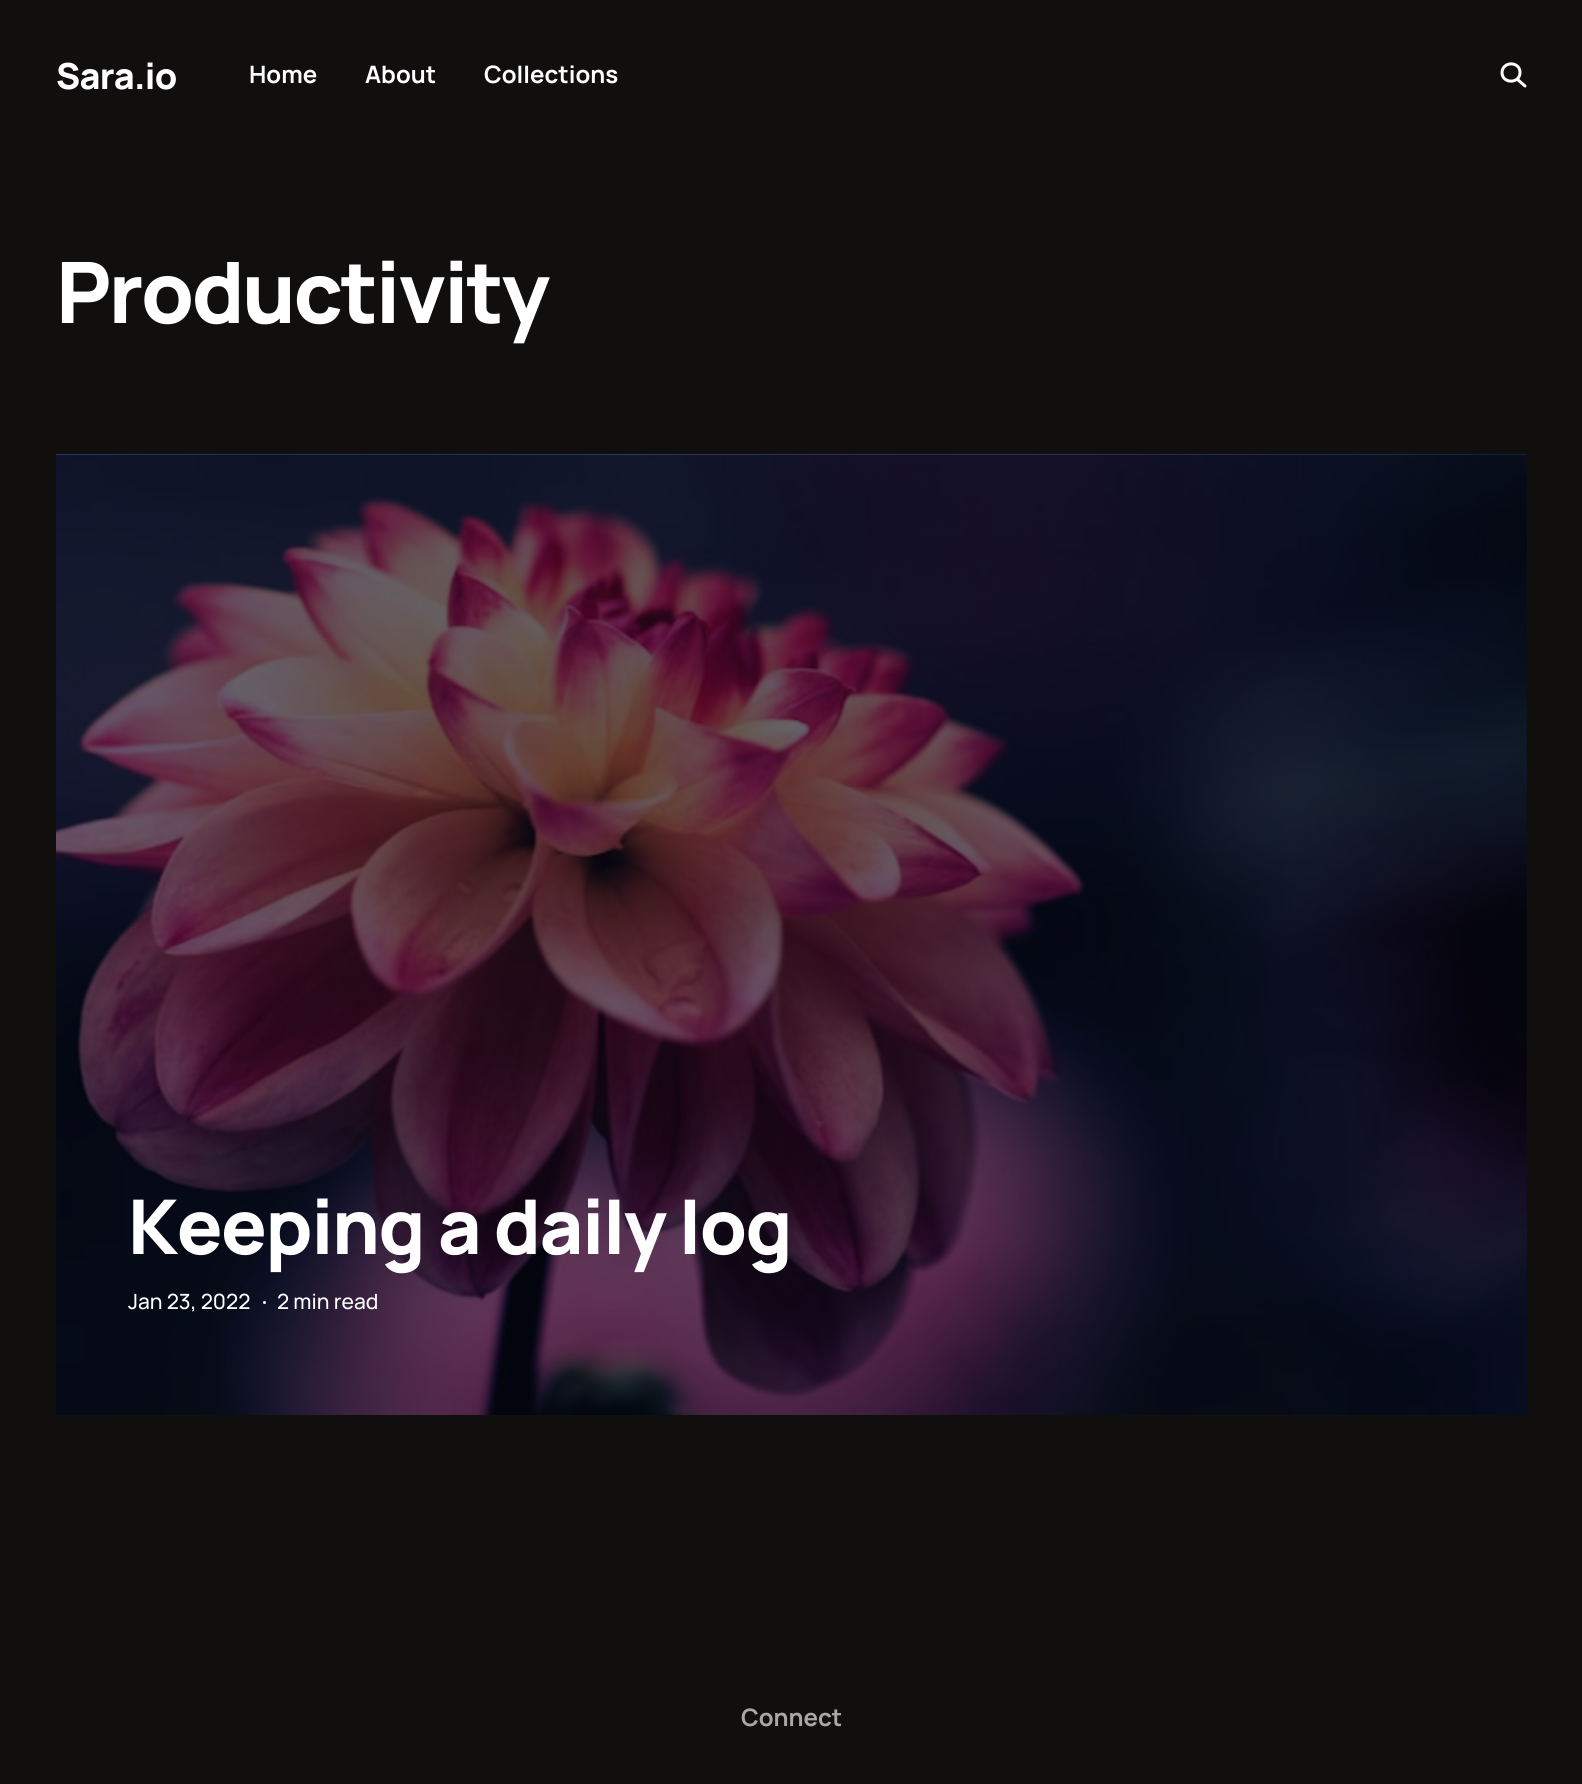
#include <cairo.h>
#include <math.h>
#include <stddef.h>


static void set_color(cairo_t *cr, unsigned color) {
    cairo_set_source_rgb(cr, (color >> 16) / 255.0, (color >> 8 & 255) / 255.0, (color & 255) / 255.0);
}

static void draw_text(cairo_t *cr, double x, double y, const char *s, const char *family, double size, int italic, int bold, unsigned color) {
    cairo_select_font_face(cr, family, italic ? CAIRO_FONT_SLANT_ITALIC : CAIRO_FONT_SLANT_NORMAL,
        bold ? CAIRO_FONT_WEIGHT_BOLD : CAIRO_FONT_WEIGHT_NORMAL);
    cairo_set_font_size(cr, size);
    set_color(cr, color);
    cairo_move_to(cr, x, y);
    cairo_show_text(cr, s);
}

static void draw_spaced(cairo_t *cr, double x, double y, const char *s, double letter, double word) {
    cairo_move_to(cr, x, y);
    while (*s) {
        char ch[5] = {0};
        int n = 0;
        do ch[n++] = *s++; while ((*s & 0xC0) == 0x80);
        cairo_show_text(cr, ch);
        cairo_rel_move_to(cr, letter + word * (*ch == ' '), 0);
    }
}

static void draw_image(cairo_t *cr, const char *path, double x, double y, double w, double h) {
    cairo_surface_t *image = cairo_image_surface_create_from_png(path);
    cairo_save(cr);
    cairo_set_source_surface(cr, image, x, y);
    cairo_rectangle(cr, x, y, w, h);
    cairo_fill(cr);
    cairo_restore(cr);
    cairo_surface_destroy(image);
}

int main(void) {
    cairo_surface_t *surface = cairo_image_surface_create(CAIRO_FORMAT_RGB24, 1582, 1784);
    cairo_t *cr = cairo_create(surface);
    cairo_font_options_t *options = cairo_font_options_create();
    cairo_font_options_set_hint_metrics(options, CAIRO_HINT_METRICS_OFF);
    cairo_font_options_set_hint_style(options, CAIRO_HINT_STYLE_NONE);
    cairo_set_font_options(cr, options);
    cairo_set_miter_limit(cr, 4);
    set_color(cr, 0x110E0E);
    cairo_paint(cr);
    cairo_select_font_face(cr, "Manrope ExtraBold", CAIRO_FONT_SLANT_NORMAL, CAIRO_FONT_WEIGHT_NORMAL);
    cairo_set_font_size(cr, 36);
    set_color(cr, 0xFFFFFF);
    draw_spaced(cr, 56, 89, "Sara.io", -0.75, 0);
    draw_text(cr, 249, 83, "Home", "Manrope", 24, 0, 1, 0xFFFFFF);
    draw_text(cr, 365, 83, "About", "Manrope", 24, 0, 1, 0xFFFFFF);
    draw_text(cr, 484, 83, "Collections", "Manrope", 24, 0, 1, 0xFFFFFF);
    cairo_new_path(cr);
    cairo_move_to(cr, 1525, 86);
    cairo_line_to(cr, 1517, 79);
    cairo_close_path(cr);
    cairo_move_to(cr, 1520, 72.5);
    cairo_curve_to(cr, 1520, 84, 1502, 84, 1502, 72.5);
    cairo_curve_to(cr, 1502.5, 61, 1520, 61, 1520, 72.5);
    cairo_close_path(cr);
    cairo_set_line_width(cr, 3);
    cairo_set_line_cap(cr, CAIRO_LINE_CAP_ROUND);
    cairo_set_line_join(cr, CAIRO_LINE_JOIN_ROUND);
    cairo_stroke(cr);
    cairo_select_font_face(cr, "Manrope ExtraBold", CAIRO_FONT_SLANT_NORMAL, CAIRO_FONT_WEIGHT_NORMAL);
    cairo_set_font_size(cr, 84.75);
    draw_spaced(cr, 56, 323, "Productivity", -2.5, 0);
    draw_image(cr, "assets/img1.png", 56, 454, 1471, 961);
    cairo_set_font_size(cr, 75.5);
    draw_spaced(cr, 128, 1254, "Keeping a daily log", -1.5, 0);
    draw_text(cr, 128, 1309, "Jan 23, 2022", "Manrope Medium", 21, 0, 0, 0xFFFFFF);
    cairo_new_path(cr);
    cairo_arc(cr, 264.5, 1302.5, 1.5, 0, 2 * M_PI);
    cairo_fill(cr);
    draw_text(cr, 277, 1309, "2 min read", "Manrope Medium", 21, 0, 0, 0xFFFFFF);
    draw_text(cr, 741, 1726, "Connect", "Manrope", 24, 0, 1, 0xA9A8A8);
    cairo_surface_write_to_png(surface, "output.png");
    cairo_font_options_destroy(options);
    cairo_destroy(cr);
    cairo_surface_destroy(surface);
    return 0;
}
